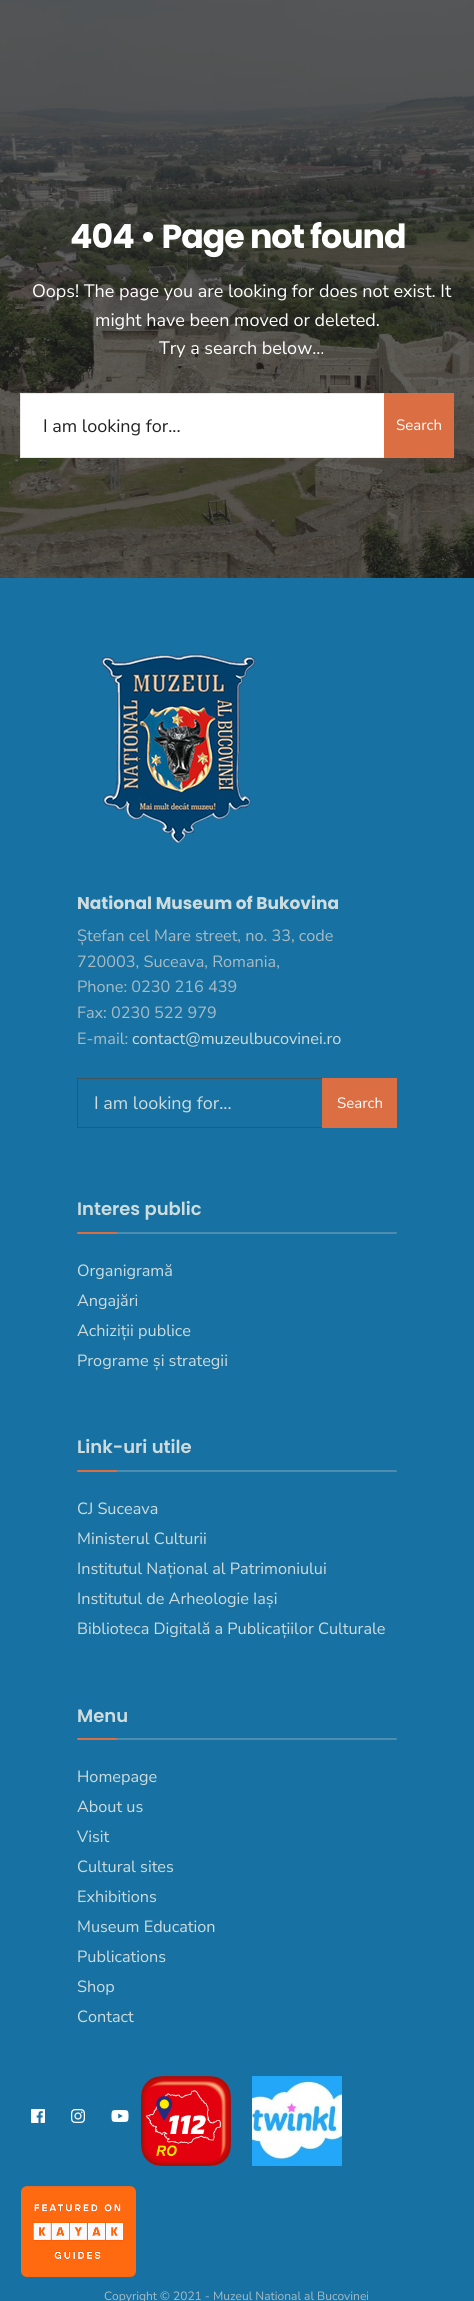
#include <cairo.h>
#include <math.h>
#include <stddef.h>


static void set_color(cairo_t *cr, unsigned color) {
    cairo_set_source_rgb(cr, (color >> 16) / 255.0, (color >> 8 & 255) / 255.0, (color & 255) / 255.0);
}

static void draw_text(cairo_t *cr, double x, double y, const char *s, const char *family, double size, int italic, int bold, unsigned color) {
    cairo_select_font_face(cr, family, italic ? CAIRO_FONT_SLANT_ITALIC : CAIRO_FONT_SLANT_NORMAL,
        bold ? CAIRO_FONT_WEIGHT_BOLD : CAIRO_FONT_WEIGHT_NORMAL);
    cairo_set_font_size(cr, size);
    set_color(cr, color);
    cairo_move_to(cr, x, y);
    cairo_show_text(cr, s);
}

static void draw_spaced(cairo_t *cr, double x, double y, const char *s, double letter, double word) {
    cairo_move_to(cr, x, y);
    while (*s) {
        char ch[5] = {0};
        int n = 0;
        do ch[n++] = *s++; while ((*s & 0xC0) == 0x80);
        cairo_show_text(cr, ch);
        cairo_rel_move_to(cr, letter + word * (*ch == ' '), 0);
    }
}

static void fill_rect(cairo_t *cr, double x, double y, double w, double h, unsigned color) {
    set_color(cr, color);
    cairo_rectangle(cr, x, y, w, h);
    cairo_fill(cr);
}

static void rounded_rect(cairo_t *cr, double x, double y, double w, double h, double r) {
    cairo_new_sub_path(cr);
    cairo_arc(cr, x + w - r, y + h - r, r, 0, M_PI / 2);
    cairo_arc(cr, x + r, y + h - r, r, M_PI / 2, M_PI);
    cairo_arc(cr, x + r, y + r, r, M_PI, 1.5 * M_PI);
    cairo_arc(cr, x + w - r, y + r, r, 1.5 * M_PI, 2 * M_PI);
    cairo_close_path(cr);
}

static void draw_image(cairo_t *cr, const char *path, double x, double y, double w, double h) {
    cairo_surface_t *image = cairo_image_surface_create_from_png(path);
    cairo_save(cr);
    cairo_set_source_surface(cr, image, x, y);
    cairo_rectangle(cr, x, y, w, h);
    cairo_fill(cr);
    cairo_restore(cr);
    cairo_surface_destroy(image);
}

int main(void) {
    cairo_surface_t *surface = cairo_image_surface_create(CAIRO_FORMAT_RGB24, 474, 2301);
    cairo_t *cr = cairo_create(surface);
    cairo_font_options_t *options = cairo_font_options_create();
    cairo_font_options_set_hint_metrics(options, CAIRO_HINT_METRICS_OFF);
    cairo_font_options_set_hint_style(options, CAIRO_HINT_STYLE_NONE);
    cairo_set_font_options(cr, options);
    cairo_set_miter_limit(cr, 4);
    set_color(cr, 0x1E1E1E);
    cairo_paint(cr);
    draw_image(cr, "assets/img1.png", 0, 0, 474, 578);
    cairo_select_font_face(cr, "Poppins", CAIRO_FONT_SLANT_NORMAL, CAIRO_FONT_WEIGHT_BOLD);
    cairo_set_font_size(cr, 33.25);
    set_color(cr, 0xFFFFFF);
    draw_spaced(cr, 70, 248, "404 • Page not found", -1, 0);
    draw_text(cr, 32, 297, "Oops! The page you are looking for does not exist. It", "Nunito Sans", 18, 0, 0, 0xFFFFFF);
    draw_text(cr, 95, 326, "might have been moved or deleted.", "Nunito Sans", 18, 0, 0, 0xFFFFFF);
    draw_text(cr, 159, 354, "Try a search below...", "Nunito Sans", 18, 0, 0, 0xFFFFFF);
    fill_rect(cr, 21, 394, 363, 63, 0xFFFFFF);
    cairo_rectangle(cr, 20.5, 393.5, 433, 64);
    set_color(cr, 0xEAEAEA);
    cairo_set_line_width(cr, 1);
    cairo_stroke(cr);
    draw_text(cr, 43, 432, "I am looking for...", "Nunito Sans", 18, 0, 0, 0x232323);
    fill_rect(cr, 384, 393, 70, 65, 0xDB6E43);
    draw_text(cr, 396, 430, "Search", "Nunito Sans", 15, 0, 0, 0xFFFFFF);
    fill_rect(cr, 0, 578, 474, 1723, 0x1772A3);
    draw_image(cr, "assets/img2.png", 102, 654, 153, 189);
    draw_text(cr, 77, 909, "National Museum of Bukovina", "Poppins", 17, 0, 1, 0xCEDCDD);
    draw_text(cr, 77, 941, "Ștefan cel Mare street, no. 33, code", "Nunito Sans", 16.25, 0, 0, 0xA8BBC4);
    draw_text(cr, 77, 967, "720003, Suceava, Romania,", "Nunito Sans", 16.25, 0, 0, 0xA8BBC4);
    draw_text(cr, 77, 992, "Phone: 0230 216 439", "Nunito Sans", 16.25, 0, 0, 0xA8BBC4);
    draw_text(cr, 77, 1018, "Fax: 0230 522 979", "Nunito Sans", 16.25, 0, 0, 0xA8BBC4);
    draw_text(cr, 77, 1044, "E-mail:", "Nunito Sans", 16.25, 0, 0, 0xA8BBC4);
    draw_text(cr, 132, 1044, "contact@muzeulbucovinei.ro", "Nunito Sans", 16.25, 0, 0, 0xCEDCDD);
    cairo_rectangle(cr, 77.5, 1078.5, 319, 49);
    set_color(cr, 0x40535B);
    cairo_stroke(cr);
    draw_text(cr, 94, 1109, "I am looking for...", "Nunito Sans", 18, 0, 0, 0xCEDCDD);
    fill_rect(cr, 322, 1078, 75, 50, 0xDB6E43);
    draw_text(cr, 337, 1108, "Search", "Nunito Sans", 15, 0, 0, 0xFFFFFF);
    draw_text(cr, 77, 1215, "Interes public", "Poppins SemiBold", 18, 0, 0, 0xCEDCDD);
    set_color(cr, 0x4D8DAF);
    rounded_rect(cr, 115, 1232, 282, 2, 1);
    cairo_fill(cr);
    set_color(cr, 0xDB6E43);
    rounded_rect(cr, 77, 1232, 40, 2, 1);
    cairo_fill(cr);
    draw_text(cr, 77, 1276, "Organigramă", "Nunito Sans", 16.25, 0, 0, 0xCEDCDD);
    draw_text(cr, 77, 1306, "Angajări", "Nunito Sans", 16.25, 0, 0, 0xCEDCDD);
    draw_text(cr, 77, 1336, "Achiziții publice", "Nunito Sans", 16.25, 0, 0, 0xCEDCDD);
    draw_text(cr, 77, 1366, "Programe și strategii", "Nunito Sans", 16.25, 0, 0, 0xCEDCDD);
    draw_text(cr, 77, 1453, "Link-uri utile", "Poppins SemiBold", 18, 0, 0, 0xCEDCDD);
    set_color(cr, 0x4D8DAF);
    rounded_rect(cr, 115, 1470, 282, 2, 1);
    cairo_fill(cr);
    set_color(cr, 0xDB6E43);
    rounded_rect(cr, 77, 1470, 40, 2, 1);
    cairo_fill(cr);
    draw_text(cr, 77, 1514, "CJ Suceava", "Nunito Sans", 16.25, 0, 0, 0xCEDCDD);
    draw_text(cr, 77, 1544, "Ministerul Culturii", "Nunito Sans", 16.25, 0, 0, 0xCEDCDD);
    draw_text(cr, 77, 1574, "Institutul Național al Patrimoniului", "Nunito Sans", 16.25, 0, 0, 0xCEDCDD);
    draw_text(cr, 77, 1604, "Institutul de Arheologie Iași", "Nunito Sans", 16.25, 0, 0, 0xCEDCDD);
    draw_text(cr, 77, 1634, "Biblioteca Digitală a Publicațiilor Culturale", "Nunito Sans", 16.25, 0, 0, 0xCEDCDD);
    draw_text(cr, 77, 1722, "Menu", "Poppins SemiBold", 18, 0, 0, 0xCEDCDD);
    set_color(cr, 0x4D8DAF);
    rounded_rect(cr, 115, 1738, 282, 2, 1);
    cairo_fill(cr);
    set_color(cr, 0xDB6E43);
    rounded_rect(cr, 77, 1738, 40, 2, 1);
    cairo_fill(cr);
    draw_text(cr, 77, 1782, "Homepage", "Nunito Sans", 16.25, 0, 0, 0xCEDCDD);
    draw_text(cr, 77, 1812, "About us", "Nunito Sans", 16.25, 0, 0, 0xCEDCDD);
    draw_text(cr, 77, 1842, "Visit", "Nunito Sans", 16.25, 0, 0, 0xCEDCDD);
    draw_text(cr, 77, 1872, "Cultural sites", "Nunito Sans", 16.25, 0, 0, 0xCEDCDD);
    draw_text(cr, 77, 1902, "Exhibitions", "Nunito Sans", 16.25, 0, 0, 0xCEDCDD);
    draw_text(cr, 77, 1932, "Museum Education", "Nunito Sans", 16.25, 0, 0, 0xCEDCDD);
    draw_text(cr, 77, 1962, "Publications", "Nunito Sans", 16.25, 0, 0, 0xCEDCDD);
    draw_text(cr, 77, 1992, "Shop", "Nunito Sans", 16.25, 0, 0, 0xCEDCDD);
    draw_text(cr, 77, 2022, "Contact", "Nunito Sans", 16.25, 0, 0, 0xCEDCDD);
    draw_image(cr, "assets/img3.png", 31, 2109, 14, 14);
    draw_image(cr, "assets/img4.png", 71, 2109, 14, 14);
    draw_image(cr, "assets/img5.png", 111, 2110, 18, 12);
    draw_image(cr, "assets/img6.png", 141, 2076, 90, 90);
    draw_image(cr, "assets/img7.png", 252, 2076, 90, 90);
    draw_image(cr, "assets/img8.png", 21, 2186, 115, 91);
    draw_text(cr, 104, 2300, "Copyright © 2021 - Muzeul Național al Bucovinei", "Nunito Sans", 12, 0, 0, 0xA8BBC4);
    cairo_surface_write_to_png(surface, "output.png");
    cairo_font_options_destroy(options);
    cairo_destroy(cr);
    cairo_surface_destroy(surface);
    return 0;
}
